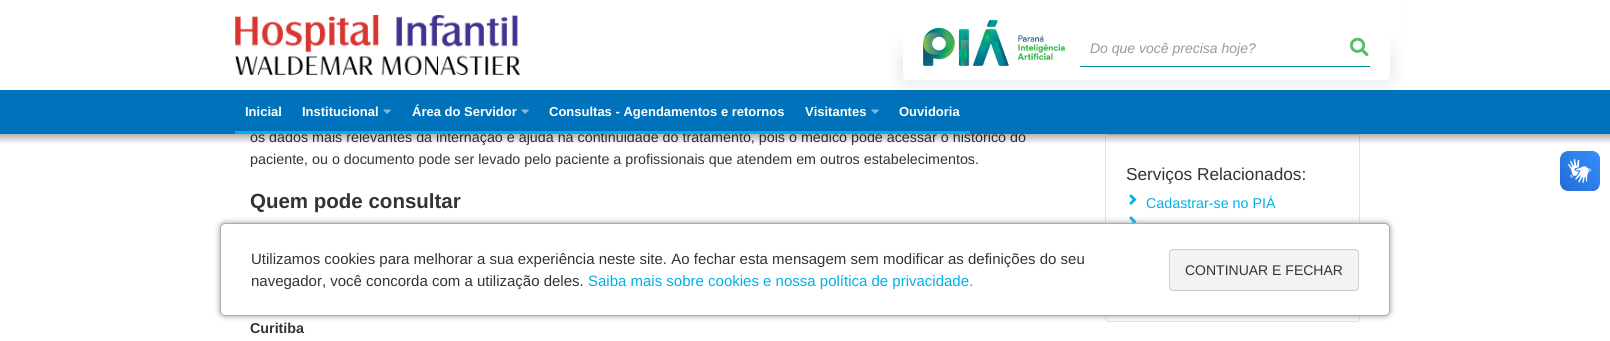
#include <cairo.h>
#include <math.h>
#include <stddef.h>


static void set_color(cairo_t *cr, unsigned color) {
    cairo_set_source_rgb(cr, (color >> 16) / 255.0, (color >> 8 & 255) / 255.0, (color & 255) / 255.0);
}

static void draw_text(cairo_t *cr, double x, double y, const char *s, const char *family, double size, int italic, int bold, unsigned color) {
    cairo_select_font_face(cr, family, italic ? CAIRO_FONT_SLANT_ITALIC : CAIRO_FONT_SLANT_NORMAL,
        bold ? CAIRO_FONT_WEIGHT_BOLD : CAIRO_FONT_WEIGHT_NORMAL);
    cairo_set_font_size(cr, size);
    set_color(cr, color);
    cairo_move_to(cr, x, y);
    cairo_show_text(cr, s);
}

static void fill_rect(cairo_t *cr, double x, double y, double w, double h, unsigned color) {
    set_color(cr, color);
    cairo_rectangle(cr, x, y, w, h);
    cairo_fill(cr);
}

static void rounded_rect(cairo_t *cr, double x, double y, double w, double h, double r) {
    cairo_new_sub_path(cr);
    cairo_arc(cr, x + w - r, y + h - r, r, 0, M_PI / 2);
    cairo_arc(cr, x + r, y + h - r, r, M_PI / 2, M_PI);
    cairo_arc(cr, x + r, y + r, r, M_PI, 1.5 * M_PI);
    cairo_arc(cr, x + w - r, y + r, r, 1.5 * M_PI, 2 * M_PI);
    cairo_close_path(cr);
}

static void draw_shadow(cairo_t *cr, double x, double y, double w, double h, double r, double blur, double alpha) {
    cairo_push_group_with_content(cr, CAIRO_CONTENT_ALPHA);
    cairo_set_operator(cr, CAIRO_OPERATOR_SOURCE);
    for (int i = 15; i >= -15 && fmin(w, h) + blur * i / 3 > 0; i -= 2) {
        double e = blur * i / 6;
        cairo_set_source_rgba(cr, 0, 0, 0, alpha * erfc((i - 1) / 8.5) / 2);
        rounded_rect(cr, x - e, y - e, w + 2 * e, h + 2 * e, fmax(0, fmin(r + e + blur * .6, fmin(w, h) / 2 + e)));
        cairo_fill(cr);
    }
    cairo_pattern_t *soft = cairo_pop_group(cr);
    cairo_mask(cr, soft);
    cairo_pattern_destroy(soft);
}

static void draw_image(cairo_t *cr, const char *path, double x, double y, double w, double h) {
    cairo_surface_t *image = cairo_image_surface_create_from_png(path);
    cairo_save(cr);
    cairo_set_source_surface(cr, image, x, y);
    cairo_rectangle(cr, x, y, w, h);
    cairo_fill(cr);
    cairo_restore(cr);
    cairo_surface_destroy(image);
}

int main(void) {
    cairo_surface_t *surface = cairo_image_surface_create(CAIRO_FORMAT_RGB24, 1610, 341);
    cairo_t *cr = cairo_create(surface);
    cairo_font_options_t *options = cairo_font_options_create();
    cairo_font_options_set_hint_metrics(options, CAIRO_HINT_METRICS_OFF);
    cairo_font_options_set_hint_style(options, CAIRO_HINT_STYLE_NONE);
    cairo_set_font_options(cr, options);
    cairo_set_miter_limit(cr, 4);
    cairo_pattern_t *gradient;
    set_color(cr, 0xFFFFFF);
    cairo_paint(cr);
    draw_image(cr, "assets/img1.png", 235, 15, 285, 60);
    draw_text(cr, 250, 142, "os dados mais relevantes da internação e ajuda na continuidade do tratamento, pois o médico pode acessar o histórico do", "Liberation Sans", 14.3, 0, 0, 0x333333);
    fill_rect(cr, 0, 90, 1610, 44, 0x0072BB);
    cairo_save(cr);
    cairo_set_fill_rule(cr, CAIRO_FILL_RULE_EVEN_ODD);
    cairo_new_path(cr);
    cairo_move_to(cr, 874, 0);
    cairo_line_to(cr, 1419, 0);
    cairo_line_to(cr, 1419, 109);
    cairo_line_to(cr, 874, 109);
    cairo_close_path(cr);
    cairo_move_to(cr, 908, 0);
    cairo_line_to(cr, 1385, 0);
    cairo_curve_to(cr, 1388, 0, 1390, 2, 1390, 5);
    cairo_line_to(cr, 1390, 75);
    cairo_curve_to(cr, 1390, 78, 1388, 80, 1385, 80);
    cairo_line_to(cr, 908, 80);
    cairo_curve_to(cr, 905, 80, 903, 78, 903, 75);
    cairo_line_to(cr, 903, 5);
    cairo_curve_to(cr, 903, 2, 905, 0, 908, 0);
    cairo_close_path(cr);
    cairo_clip(cr);
    set_color(cr, 0x000000);
    draw_shadow(cr, 898, -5, 497, 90, 10, 7.5, 0.08);
    cairo_restore(cr);
    gradient = cairo_pattern_create_linear(1156, -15, 1156, 65);
    cairo_pattern_add_color_stop_rgba(gradient, 0, 1, 1, 1, 1);
    cairo_pattern_add_color_stop_rgba(gradient, 0.6, 1, 1, 1, 1);
    cairo_pattern_add_color_stop_rgba(gradient, 1, 1, 1, 1, 0);
    cairo_set_source(cr, gradient);
    cairo_pattern_destroy(gradient);
    cairo_rectangle(cr, 889, 0, 515, 59);
    cairo_fill(cr);
    draw_image(cr, "assets/img2.png", 923, 20, 142, 46);
    fill_rect(cr, 1080, 66, 290, 1, 0x01919A);
    draw_text(cr, 1090, 53, "Do que você precisa hoje?", "Liberation Sans", 14, 1, 0, 0x999999);
    draw_image(cr, "assets/img3.png", 1350, 37, 19, 20);
    draw_text(cr, 245, 116, "Inicial", "Liberation Sans", 13, 0, 1, 0xFFFFFF);
    fill_rect(cr, 235, 131, 735, 3, 0x00B0E6);
    draw_text(cr, 302, 116, "Institucional", "Liberation Sans", 13, 0, 1, 0xFFFFFF);
    draw_image(cr, "assets/img4.png", 383, 109, 8, 5);
    draw_text(cr, 412, 116, "Área do Servidor", "Liberation Sans", 13, 0, 1, 0xFFFFFF);
    draw_image(cr, "assets/img4.png", 521, 109, 8, 5);
    draw_text(cr, 549, 116, "Consultas - Agendamentos e retornos", "Liberation Sans", 13, 0, 1, 0xFFFFFF);
    draw_text(cr, 805, 116, "Visitantes", "Liberation Sans", 13, 0, 1, 0xFFFFFF);
    draw_image(cr, "assets/img4.png", 871, 109, 8, 5);
    draw_text(cr, 899, 116, "Ouvidoria", "Liberation Sans", 13, 0, 1, 0xFFFFFF);
    rounded_rect(cr, 1105.5, 134.5, 254, 187, 3.5);
    set_color(cr, 0xE2E2E2);
    cairo_set_line_width(cr, 1);
    cairo_stroke(cr);
    gradient = cairo_pattern_create_linear(805, 134, 805, 144);
    cairo_pattern_add_color_stop_rgba(gradient, 0, 0, 0, 0, 0.3);
    cairo_pattern_add_color_stop_rgba(gradient, 1, 0, 0, 0, 0);
    cairo_set_source(cr, gradient);
    cairo_pattern_destroy(gradient);
    cairo_rectangle(cr, 0, 134, 1610, 9);
    cairo_fill(cr);
    draw_text(cr, 250, 164, "paciente, ou o documento pode ser levado pelo paciente a profissionais que atendem em outros estabelecimentos.", "Liberation Sans", 14.3, 0, 0, 0x333333);
    draw_text(cr, 250, 208, "Quem pode consultar", "Liberation Sans", 20.5, 0, 1, 0x333333);
    draw_text(cr, 250, 333, "Curitiba", "Liberation Sans", 14.3, 0, 1, 0x333333);
    draw_text(cr, 1126, 180, "Serviços Relacionados:", "Liberation Sans", 17.25, 0, 0, 0x333333);
    draw_image(cr, "assets/img5.png", 1129, 194, 8, 11);
    draw_text(cr, 1146, 208, "Cadastrar-se no PIÁ", "Liberation Sans", 14.3, 0, 0, 0x00B0E6);
    draw_image(cr, "assets/img6.png", 1129, 216, 8, 7);
    draw_image(cr, "assets/img7.png", 1560, 151, 40, 40);
    draw_image(cr, "assets/img8.png", 1560, 151, 40, 40);
    set_color(cr, 0x999999);
    draw_shadow(cr, 220, 223, 1170, 93, 5, 3, 1);
    set_color(cr, 0xFFFFFF);
    rounded_rect(cr, 220.5, 223.5, 1169, 92, 4.5);
    cairo_fill_preserve(cr);
    set_color(cr, 0xADADAD);
    cairo_stroke(cr);
    draw_text(cr, 251, 264, "Utilizamos cookies para melhorar a sua experiência neste site. Ao fechar esta mensagem sem modificar as definições do seu", "Liberation Sans", 15, 0, 0, 0x333333);
    draw_text(cr, 251, 286, "navegador, você concorda com a utilização deles.", "Liberation Sans", 15, 0, 0, 0x333333);
    draw_text(cr, 588, 286, "Saiba mais sobre cookies e nossa política de privacidade.", "Liberation Sans", 15, 0, 0, 0x00B0E6);
    set_color(cr, 0xF3F3F3);
    rounded_rect(cr, 1169.5, 249.5, 189, 41, 3.5);
    cairo_fill_preserve(cr);
    set_color(cr, 0xCCCCCC);
    cairo_stroke(cr);
    draw_text(cr, 1185, 275, "CONTINUAR E FECHAR", "Liberation Sans", 14, 0, 0, 0x333333);
    cairo_surface_write_to_png(surface, "output.png");
    cairo_font_options_destroy(options);
    cairo_destroy(cr);
    cairo_surface_destroy(surface);
    return 0;
}
